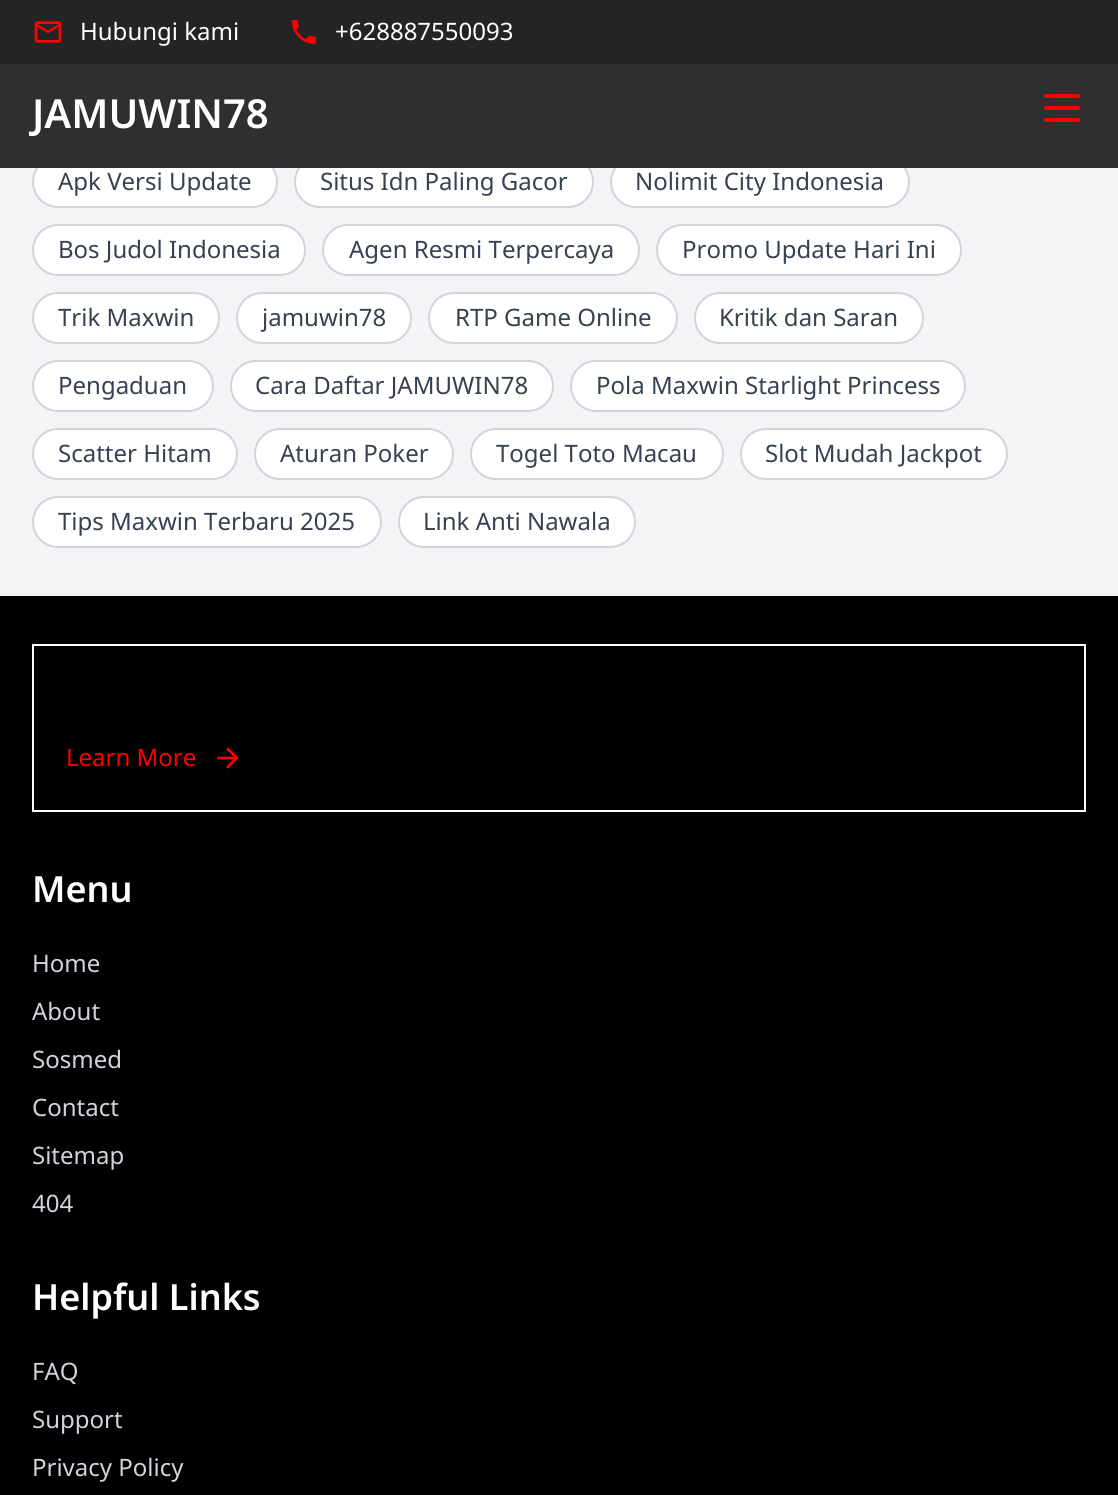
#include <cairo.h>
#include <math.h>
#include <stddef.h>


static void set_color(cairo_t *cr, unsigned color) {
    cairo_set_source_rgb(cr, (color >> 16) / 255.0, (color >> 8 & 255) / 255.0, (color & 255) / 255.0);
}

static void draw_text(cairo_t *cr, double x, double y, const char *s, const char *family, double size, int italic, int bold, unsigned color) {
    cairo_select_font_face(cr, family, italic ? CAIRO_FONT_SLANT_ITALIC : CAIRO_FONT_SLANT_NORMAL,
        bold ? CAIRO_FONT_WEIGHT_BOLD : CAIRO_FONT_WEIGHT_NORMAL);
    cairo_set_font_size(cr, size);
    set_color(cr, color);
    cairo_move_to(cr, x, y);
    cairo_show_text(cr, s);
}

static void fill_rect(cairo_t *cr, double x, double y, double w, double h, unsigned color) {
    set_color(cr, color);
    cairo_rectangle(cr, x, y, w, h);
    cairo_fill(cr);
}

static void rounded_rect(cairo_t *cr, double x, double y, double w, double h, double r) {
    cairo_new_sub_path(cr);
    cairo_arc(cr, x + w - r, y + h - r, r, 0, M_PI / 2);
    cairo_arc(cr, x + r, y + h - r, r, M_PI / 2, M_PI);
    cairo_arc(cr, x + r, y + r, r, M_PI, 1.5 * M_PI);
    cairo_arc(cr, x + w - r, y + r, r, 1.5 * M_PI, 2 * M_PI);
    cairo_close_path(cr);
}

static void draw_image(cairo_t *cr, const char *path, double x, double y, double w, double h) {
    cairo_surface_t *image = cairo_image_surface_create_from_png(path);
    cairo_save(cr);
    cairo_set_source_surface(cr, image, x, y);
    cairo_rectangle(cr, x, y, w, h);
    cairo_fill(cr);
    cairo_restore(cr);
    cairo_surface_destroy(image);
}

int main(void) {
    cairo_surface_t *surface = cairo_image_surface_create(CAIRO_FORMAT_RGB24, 1118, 1495);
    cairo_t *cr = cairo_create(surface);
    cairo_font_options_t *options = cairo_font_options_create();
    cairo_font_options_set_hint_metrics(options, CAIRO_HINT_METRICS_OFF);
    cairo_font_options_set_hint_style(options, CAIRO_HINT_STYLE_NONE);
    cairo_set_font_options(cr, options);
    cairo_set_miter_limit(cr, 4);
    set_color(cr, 0xF3F4F6);
    cairo_paint(cr);
    fill_rect(cr, 0, 0, 1118, 64, 0x242424);
    draw_image(cr, "assets/img1.png", 34, 21, 28, 22);
    draw_text(cr, 80, 40, "Hubungi kami", "Noto Sans", 24, 0, 0, 0xFFFFFF);
    draw_image(cr, "assets/img2.png", 292, 20, 24, 24);
    draw_text(cr, 335, 40, "+628887550093", "Noto Sans", 24, 0, 0, 0xFFFFFF);
    rounded_rect(cr, 33, 157, 244, 50, 25);
    cairo_fill_preserve(cr);
    set_color(cr, 0xD1D5DB);
    cairo_stroke(cr);
    set_color(cr, 0xFFFFFF);
    rounded_rect(cr, 295, 157, 298, 50, 25);
    cairo_fill_preserve(cr);
    set_color(cr, 0xD1D5DB);
    cairo_stroke(cr);
    set_color(cr, 0xFFFFFF);
    rounded_rect(cr, 611, 157, 298, 50, 25);
    cairo_fill_preserve(cr);
    set_color(cr, 0xD1D5DB);
    cairo_stroke(cr);
    fill_rect(cr, 0, 64, 1118, 104, 0x2F2F2F);
    draw_text(cr, 32, 128, "JAMUWIN78", "Noto Sans SemiBold", 40, 0, 0, 0xFFFFFF);
    cairo_new_path(cr);
    cairo_move_to(cr, 1046, 96);
    cairo_line_to(cr, 1078, 96);
    cairo_move_to(cr, 1046, 108);
    cairo_line_to(cr, 1078, 108);
    cairo_move_to(cr, 1046, 120);
    cairo_line_to(cr, 1078, 120);
    set_color(cr, 0xFF0000);
    cairo_set_line_width(cr, 4);
    cairo_set_line_cap(cr, CAIRO_LINE_CAP_ROUND);
    cairo_set_line_join(cr, CAIRO_LINE_JOIN_ROUND);
    cairo_stroke(cr);
    draw_text(cr, 58, 190, "Apk Versi Update", "Noto Sans", 24, 0, 0, 0x374151);
    draw_text(cr, 320, 190, "Situs Idn Paling Gacor", "Noto Sans", 24, 0, 0, 0x374151);
    draw_text(cr, 635, 190, "Nolimit City Indonesia", "Noto Sans", 24, 0, 0, 0x374151);
    set_color(cr, 0xFFFFFF);
    rounded_rect(cr, 33, 225, 272, 50, 25);
    cairo_fill_preserve(cr);
    set_color(cr, 0xD1D5DB);
    cairo_set_line_width(cr, 2);
    cairo_set_line_cap(cr, CAIRO_LINE_CAP_BUTT);
    cairo_set_line_join(cr, CAIRO_LINE_JOIN_MITER);
    cairo_stroke(cr);
    draw_text(cr, 58, 258, "Bos Judol Indonesia", "Noto Sans", 24, 0, 0, 0x374151);
    set_color(cr, 0xFFFFFF);
    rounded_rect(cr, 323, 225, 316, 50, 25);
    cairo_fill_preserve(cr);
    set_color(cr, 0xD1D5DB);
    cairo_stroke(cr);
    draw_text(cr, 349, 258, "Agen Resmi Terpercaya", "Noto Sans", 24, 0, 0, 0x374151);
    set_color(cr, 0xFFFFFF);
    rounded_rect(cr, 657, 225, 304, 50, 25);
    cairo_fill_preserve(cr);
    set_color(cr, 0xD1D5DB);
    cairo_stroke(cr);
    draw_text(cr, 682, 258, "Promo Update Hari Ini", "Noto Sans", 24, 0, 0, 0x374151);
    set_color(cr, 0xFFFFFF);
    rounded_rect(cr, 33, 293, 186, 50, 25);
    cairo_fill_preserve(cr);
    set_color(cr, 0xD1D5DB);
    cairo_stroke(cr);
    draw_text(cr, 58, 326, "Trik Maxwin", "Noto Sans", 24, 0, 0, 0x374151);
    set_color(cr, 0xFFFFFF);
    rounded_rect(cr, 237, 293, 174, 50, 25);
    cairo_fill_preserve(cr);
    set_color(cr, 0xD1D5DB);
    cairo_stroke(cr);
    draw_text(cr, 262, 326, "jamuwin78", "Noto Sans", 24, 0, 0, 0x374151);
    set_color(cr, 0xFFFFFF);
    rounded_rect(cr, 429, 293, 248, 50, 25);
    cairo_fill_preserve(cr);
    set_color(cr, 0xD1D5DB);
    cairo_stroke(cr);
    draw_text(cr, 455, 326, "RTP Game Online", "Noto Sans", 24, 0, 0, 0x374151);
    set_color(cr, 0xFFFFFF);
    rounded_rect(cr, 695, 293, 228, 50, 25);
    cairo_fill_preserve(cr);
    set_color(cr, 0xD1D5DB);
    cairo_stroke(cr);
    draw_text(cr, 719, 326, "Kritik dan Saran", "Noto Sans", 24, 0, 0, 0x374151);
    set_color(cr, 0xFFFFFF);
    rounded_rect(cr, 33, 361, 180, 50, 25);
    cairo_fill_preserve(cr);
    set_color(cr, 0xD1D5DB);
    cairo_stroke(cr);
    draw_text(cr, 58, 394, "Pengaduan", "Noto Sans", 24, 0, 0, 0x374151);
    set_color(cr, 0xFFFFFF);
    rounded_rect(cr, 231, 361, 322, 50, 25);
    cairo_fill_preserve(cr);
    set_color(cr, 0xD1D5DB);
    cairo_stroke(cr);
    draw_text(cr, 255, 394, "Cara Daftar JAMUWIN78", "Noto Sans", 24, 0, 0, 0x374151);
    set_color(cr, 0xFFFFFF);
    rounded_rect(cr, 571, 361, 394, 50, 25);
    cairo_fill_preserve(cr);
    set_color(cr, 0xD1D5DB);
    cairo_stroke(cr);
    draw_text(cr, 596, 394, "Pola Maxwin Starlight Princess", "Noto Sans", 24, 0, 0, 0x374151);
    set_color(cr, 0xFFFFFF);
    rounded_rect(cr, 33, 429, 204, 50, 25);
    cairo_fill_preserve(cr);
    set_color(cr, 0xD1D5DB);
    cairo_stroke(cr);
    draw_text(cr, 58, 462, "Scatter Hitam", "Noto Sans", 24, 0, 0, 0x374151);
    set_color(cr, 0xFFFFFF);
    rounded_rect(cr, 255, 429, 198, 50, 25);
    cairo_fill_preserve(cr);
    set_color(cr, 0xD1D5DB);
    cairo_stroke(cr);
    draw_text(cr, 280, 462, "Aturan Poker", "Noto Sans", 24, 0, 0, 0x374151);
    set_color(cr, 0xFFFFFF);
    rounded_rect(cr, 471, 429, 252, 50, 25);
    cairo_fill_preserve(cr);
    set_color(cr, 0xD1D5DB);
    cairo_stroke(cr);
    draw_text(cr, 496, 462, "Togel Toto Macau", "Noto Sans", 24, 0, 0, 0x374151);
    set_color(cr, 0xFFFFFF);
    rounded_rect(cr, 741, 429, 266, 50, 25);
    cairo_fill_preserve(cr);
    set_color(cr, 0xD1D5DB);
    cairo_stroke(cr);
    draw_text(cr, 765, 462, "Slot Mudah Jackpot", "Noto Sans", 24, 0, 0, 0x374151);
    set_color(cr, 0xFFFFFF);
    rounded_rect(cr, 33, 497, 348, 50, 25);
    cairo_fill_preserve(cr);
    set_color(cr, 0xD1D5DB);
    cairo_stroke(cr);
    draw_text(cr, 58, 530, "Tips Maxwin Terbaru 2025", "Noto Sans", 24, 0, 0, 0x374151);
    set_color(cr, 0xFFFFFF);
    rounded_rect(cr, 399, 497, 236, 50, 25);
    cairo_fill_preserve(cr);
    set_color(cr, 0xD1D5DB);
    cairo_stroke(cr);
    draw_text(cr, 423, 530, "Link Anti Nawala", "Noto Sans", 24, 0, 0, 0x374151);
    fill_rect(cr, 0, 596, 1118, 899, 0x000000);
    cairo_rectangle(cr, 33, 645, 1052, 166);
    set_color(cr, 0xFFFFFF);
    cairo_stroke(cr);
    draw_text(cr, 66, 766, "Learn More", "Noto Sans", 24, 0, 0, 0xFF0000);
    draw_image(cr, "assets/img3.png", 217, 747, 22, 22);
    draw_text(cr, 32, 902, "Menu", "Noto Sans SemiBold", 36, 0, 0, 0xFFFFFF);
    draw_text(cr, 32, 972, "Home", "Noto Sans", 24, 0, 0, 0xD1D5DB);
    draw_text(cr, 32, 1020, "About", "Noto Sans", 24, 0, 0, 0xD1D5DB);
    draw_text(cr, 32, 1068, "Sosmed", "Noto Sans", 24, 0, 0, 0xD1D5DB);
    draw_text(cr, 32, 1116, "Contact", "Noto Sans", 24, 0, 0, 0xD1D5DB);
    draw_text(cr, 32, 1164, "Sitemap", "Noto Sans", 24, 0, 0, 0xD1D5DB);
    draw_text(cr, 32, 1212, "404", "Noto Sans", 24, 0, 0, 0xD1D5DB);
    draw_text(cr, 32, 1310, "Helpful Links", "Noto Sans SemiBold", 36, 0, 0, 0xFFFFFF);
    draw_text(cr, 32, 1380, "FAQ", "Noto Sans", 24, 0, 0, 0xD1D5DB);
    draw_text(cr, 32, 1428, "Support", "Noto Sans", 24, 0, 0, 0xD1D5DB);
    draw_text(cr, 32, 1476, "Privacy Policy", "Noto Sans", 24, 0, 0, 0xD1D5DB);
    cairo_surface_write_to_png(surface, "output.png");
    cairo_font_options_destroy(options);
    cairo_destroy(cr);
    cairo_surface_destroy(surface);
    return 0;
}
